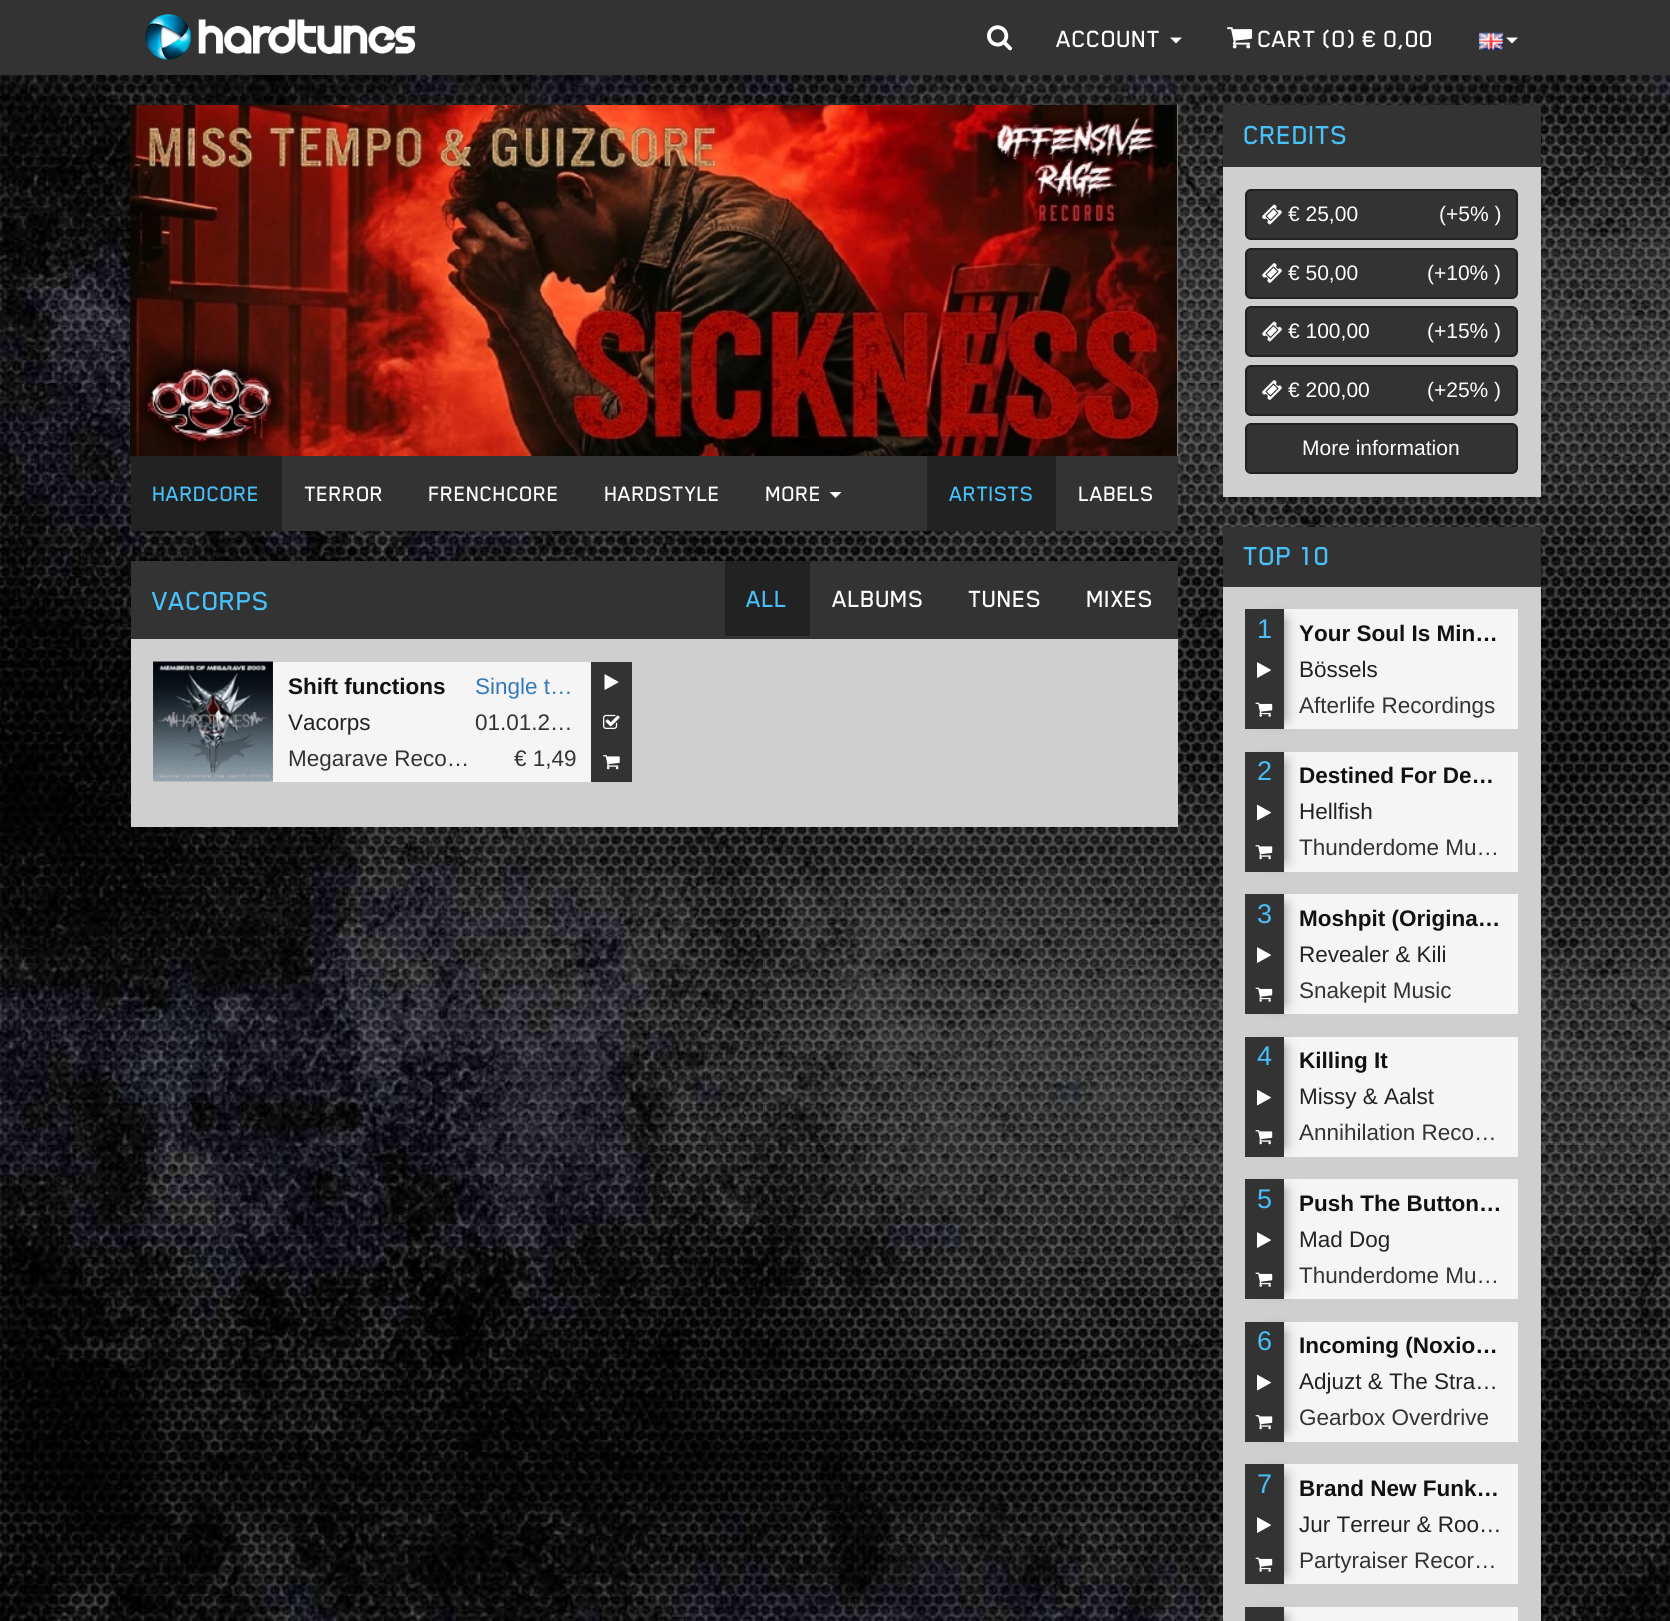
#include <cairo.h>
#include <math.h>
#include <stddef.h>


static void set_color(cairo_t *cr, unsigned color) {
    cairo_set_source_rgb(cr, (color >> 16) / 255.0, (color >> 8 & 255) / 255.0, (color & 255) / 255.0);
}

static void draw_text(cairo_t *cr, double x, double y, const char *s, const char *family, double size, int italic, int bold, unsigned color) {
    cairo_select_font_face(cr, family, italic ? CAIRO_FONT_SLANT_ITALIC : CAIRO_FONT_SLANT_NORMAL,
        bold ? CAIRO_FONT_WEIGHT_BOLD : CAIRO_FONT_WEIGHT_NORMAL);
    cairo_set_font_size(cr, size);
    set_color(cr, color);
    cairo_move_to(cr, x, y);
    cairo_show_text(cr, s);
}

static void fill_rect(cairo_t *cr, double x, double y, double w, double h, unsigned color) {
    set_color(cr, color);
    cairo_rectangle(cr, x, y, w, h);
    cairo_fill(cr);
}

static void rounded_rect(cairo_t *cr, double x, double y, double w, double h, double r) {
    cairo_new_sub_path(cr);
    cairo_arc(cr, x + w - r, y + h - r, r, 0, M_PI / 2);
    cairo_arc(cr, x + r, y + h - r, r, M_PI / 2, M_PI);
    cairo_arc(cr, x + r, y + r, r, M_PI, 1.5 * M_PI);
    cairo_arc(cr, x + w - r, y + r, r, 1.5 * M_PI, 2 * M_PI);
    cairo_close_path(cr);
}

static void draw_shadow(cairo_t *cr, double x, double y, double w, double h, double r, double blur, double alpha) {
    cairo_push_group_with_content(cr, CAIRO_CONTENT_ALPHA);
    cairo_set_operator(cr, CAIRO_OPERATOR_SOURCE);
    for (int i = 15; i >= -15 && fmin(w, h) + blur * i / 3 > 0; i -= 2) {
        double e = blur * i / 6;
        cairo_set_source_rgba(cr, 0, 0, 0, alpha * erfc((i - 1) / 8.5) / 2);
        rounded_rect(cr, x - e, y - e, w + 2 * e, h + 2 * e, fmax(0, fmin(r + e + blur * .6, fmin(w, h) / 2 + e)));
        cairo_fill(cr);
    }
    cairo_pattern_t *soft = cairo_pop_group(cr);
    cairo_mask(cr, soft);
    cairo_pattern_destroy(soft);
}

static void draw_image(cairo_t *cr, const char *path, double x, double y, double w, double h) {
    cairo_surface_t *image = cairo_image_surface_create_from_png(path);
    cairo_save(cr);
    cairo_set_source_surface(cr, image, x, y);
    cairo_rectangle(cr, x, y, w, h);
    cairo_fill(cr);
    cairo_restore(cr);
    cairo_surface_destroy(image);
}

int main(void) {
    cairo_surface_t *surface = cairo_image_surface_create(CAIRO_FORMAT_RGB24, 1670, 1621);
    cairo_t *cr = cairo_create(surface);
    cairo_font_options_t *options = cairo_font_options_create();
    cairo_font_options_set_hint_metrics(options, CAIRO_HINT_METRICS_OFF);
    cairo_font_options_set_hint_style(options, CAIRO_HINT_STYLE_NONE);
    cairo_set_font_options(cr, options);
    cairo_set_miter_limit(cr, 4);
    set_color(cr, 0xFFFFFF);
    cairo_paint(cr);
    draw_image(cr, "assets/img1.png", 0, 75, 1670, 1546);
    fill_rect(cr, 0, 0, 1670, 75, 0x333333);
    draw_image(cr, "assets/img2.png", 145, 14, 271, 46);
    draw_image(cr, "assets/img3.png", 987, 25, 26, 26);
    draw_text(cr, 1057, 47, "ACCOUNT", "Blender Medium", 27, 0, 0, 0xFFFFFF);
    cairo_new_path(cr);
    cairo_move_to(cr, 1170, 37.5);
    cairo_line_to(cr, 1182, 37.5);
    cairo_line_to(cr, 1176, 43.5);
    cairo_close_path(cr);
    cairo_fill(cr);
    draw_image(cr, "assets/img4.png", 1227, 27, 26, 22);
    draw_text(cr, 1258, 47, "CART (0) € 0,00", "Blender Medium", 27, 0, 0, 0xFFFFFF);
    draw_image(cr, "assets/img5.png", 1479, 32, 24, 18);
    cairo_new_path(cr);
    cairo_move_to(cr, 1506, 37.5);
    cairo_line_to(cr, 1518, 37.5);
    cairo_line_to(cr, 1512, 43.5);
    cairo_close_path(cr);
    cairo_fill(cr);
    fill_rect(cr, 1177, 105, 1, 351, 0xCFCFCF);
    draw_image(cr, "assets/img6.png", 130, 105, 1048, 351);
    fill_rect(cr, 282, 456, 896, 75, 0x333333);
    fill_rect(cr, 131, 456, 151, 75, 0x222222);
    draw_text(cr, 153, 501, "HARDCORE", "Blender Medium", 24, 0, 0, 0x48C0F9);
    draw_text(cr, 305, 501, "TERROR", "Blender Medium", 24, 0, 0, 0xFFFFFF);
    draw_text(cr, 429, 501, "FRENCHCORE", "Blender Medium", 24, 0, 0, 0xFFFFFF);
    draw_text(cr, 605, 501, "HARDSTYLE", "Blender Medium", 24, 0, 0, 0xFFFFFF);
    draw_text(cr, 766, 501, "MORE", "Blender Medium", 24, 0, 0, 0xFFFFFF);
    cairo_new_path(cr);
    cairo_move_to(cr, 829.5, 492);
    cairo_line_to(cr, 841.5, 492);
    cairo_line_to(cr, 835.5, 498);
    cairo_close_path(cr);
    cairo_fill(cr);
    fill_rect(cr, 927, 456, 129, 75, 0x222222);
    draw_text(cr, 950, 501, "ARTISTS", "Blender Medium", 24, 0, 0, 0x48C0F9);
    draw_text(cr, 1079, 501, "LABELS", "Blender Medium", 24, 0, 0, 0xFFFFFF);
    fill_rect(cr, 131, 561, 1047, 78, 0x333333);
    draw_text(cr, 153, 610, "VACORPS", "Blender Medium", 30, 0, 0, 0x48C0F9);
    fill_rect(cr, 725, 561, 85, 75, 0x222222);
    draw_text(cr, 747, 607, "ALL", "Blender Medium", 27, 0, 0, 0x48C0F9);
    draw_text(cr, 833, 607, "ALBUMS", "Blender Medium", 27, 0, 0, 0xFFFFFF);
    draw_text(cr, 969, 607, "TUNES", "Blender Medium", 27, 0, 0, 0xFFFFFF);
    draw_text(cr, 1087, 607, "MIXES", "Blender Medium", 27, 0, 0, 0xFFFFFF);
    fill_rect(cr, 131, 639, 1047, 188, 0xCFCFCF);
    draw_image(cr, "assets/img7.png", 153, 661, 120, 121);
    fill_rect(cr, 273, 662, 318, 120, 0xF5F5F5);
    draw_text(cr, 288, 694, "Shift functions", "Liberation Sans", 22.5, 0, 1, 0x111111);
    draw_text(cr, 288, 730, "Vacorps", "Liberation Sans", 22.5, 0, 0, 0x222222);
    draw_text(cr, 288, 766, "Megarave Reco…", "Liberation Sans", 22.5, 0, 0, 0x333333);
    draw_text(cr, 475, 694, "Single t…", "Liberation Sans", 22.5, 0, 0, 0x337AB7);
    draw_text(cr, 475, 730, "01.01.2…", "Liberation Sans", 22.5, 0, 0, 0x333333);
    draw_text(cr, 514, 766, "€ 1,49", "Liberation Sans", 22.5, 0, 0, 0x333333);
    fill_rect(cr, 591, 662, 41, 120, 0x333333);
    draw_image(cr, "assets/img8.png", 604, 674, 15, 16);
    draw_image(cr, "assets/img9.png", 603, 714, 17, 15);
    draw_image(cr, "assets/img10.png", 603, 755, 17, 15);
    fill_rect(cr, 1223, 105, 318, 62, 0x333333);
    draw_text(cr, 1244, 144, "CREDITS", "Blender Medium", 30, 0, 0, 0x48C0F9);
    fill_rect(cr, 1223, 167, 318, 330, 0xCFCFCF);
    set_color(cr, 0x333333);
    rounded_rect(cr, 1246, 190, 271, 49, 5);
    cairo_fill_preserve(cr);
    set_color(cr, 0x222222);
    cairo_stroke(cr);
    draw_image(cr, "assets/img11.png", 1262, 204, 20, 21);
    draw_text(cr, 1288, 221, "€ 25,00", "Liberation Sans", 21, 0, 0, 0xFFFFFF);
    draw_text(cr, 1439, 221, "(+5% )", "Liberation Sans", 21, 0, 0, 0xFFFFFF);
    set_color(cr, 0x333333);
    rounded_rect(cr, 1246, 249, 271, 49, 5);
    cairo_fill_preserve(cr);
    set_color(cr, 0x222222);
    cairo_stroke(cr);
    draw_image(cr, "assets/img12.png", 1262, 263, 20, 20);
    draw_text(cr, 1288, 280, "€ 50,00", "Liberation Sans", 21, 0, 0, 0xFFFFFF);
    draw_text(cr, 1427, 280, "(+10% )", "Liberation Sans", 21, 0, 0, 0xFFFFFF);
    set_color(cr, 0x333333);
    rounded_rect(cr, 1246, 307, 271, 49, 5);
    cairo_fill_preserve(cr);
    set_color(cr, 0x222222);
    cairo_stroke(cr);
    draw_image(cr, "assets/img11.png", 1262, 321, 20, 21);
    draw_text(cr, 1288, 338, "€ 100,00", "Liberation Sans", 21, 0, 0, 0xFFFFFF);
    draw_text(cr, 1427, 338, "(+15% )", "Liberation Sans", 21, 0, 0, 0xFFFFFF);
    set_color(cr, 0x333333);
    rounded_rect(cr, 1246, 366, 271, 49, 5);
    cairo_fill_preserve(cr);
    set_color(cr, 0x222222);
    cairo_stroke(cr);
    draw_image(cr, "assets/img12.png", 1262, 380, 20, 20);
    draw_text(cr, 1288, 397, "€ 200,00", "Liberation Sans", 21, 0, 0, 0xFFFFFF);
    draw_text(cr, 1427, 397, "(+25% )", "Liberation Sans", 21, 0, 0, 0xFFFFFF);
    set_color(cr, 0x333333);
    rounded_rect(cr, 1246, 424, 271, 49, 5);
    cairo_fill_preserve(cr);
    set_color(cr, 0x222222);
    cairo_stroke(cr);
    draw_text(cr, 1302, 455, "More information", "Liberation Sans", 21, 0, 0, 0xFFFFFF);
    fill_rect(cr, 1223, 527, 318, 60, 0x333333);
    draw_text(cr, 1244, 565, "TOP 10", "Blender Medium", 30, 0, 0, 0x48C0F9);
    fill_rect(cr, 1223, 587, 318, 1034, 0xCFCFCF);
    fill_rect(cr, 1284, 609, 234, 120, 0xF5F5F5);
    set_color(cr, 0x111111);
    draw_shadow(cr, 1266, 620, 18, 99, 0, 7, 0.5);
    fill_rect(cr, 1245, 609, 39, 120, 0x333333);
    draw_text(cr, 1257, 638, "1", "Liberation Sans", 27, 0, 0, 0x48C0F9);
    draw_image(cr, "assets/img13.png", 1257, 662, 14, 16);
    draw_image(cr, "assets/img14.png", 1255, 702, 18, 15);
    draw_text(cr, 1299, 641, "Your Soul Is Min…", "Liberation Sans", 22.5, 0, 1, 0x111111);
    draw_text(cr, 1299, 677, "Bössels", "Liberation Sans", 22.5, 0, 0, 0x222222);
    draw_text(cr, 1299, 713, "Afterlife Recordings", "Liberation Sans", 22.5, 0, 0, 0x333333);
    fill_rect(cr, 1284, 752, 234, 120, 0xF5F5F5);
    set_color(cr, 0x111111);
    draw_shadow(cr, 1266, 762, 18, 99, 0, 7, 0.5);
    fill_rect(cr, 1245, 752, 39, 120, 0x333333);
    draw_text(cr, 1257, 780, "2", "Liberation Sans", 27, 0, 0, 0x48C0F9);
    draw_image(cr, "assets/img15.png", 1257, 804, 15, 17);
    draw_image(cr, "assets/img16.png", 1255, 845, 18, 15);
    draw_text(cr, 1299, 783, "Destined For De…", "Liberation Sans", 22.5, 0, 1, 0x111111);
    draw_text(cr, 1299, 819, "Hellfish", "Liberation Sans", 22.5, 0, 0, 0x222222);
    draw_text(cr, 1299, 855, "Thunderdome Mu…", "Liberation Sans", 22.5, 0, 0, 0x333333);
    fill_rect(cr, 1284, 894, 234, 120, 0xF5F5F5);
    set_color(cr, 0x111111);
    draw_shadow(cr, 1266, 905, 18, 99, 0, 7, 0.5);
    fill_rect(cr, 1245, 894, 39, 120, 0x333333);
    draw_text(cr, 1257, 923, "3", "Liberation Sans", 27, 0, 0, 0x48C0F9);
    draw_image(cr, "assets/img13.png", 1257, 947, 14, 16);
    draw_image(cr, "assets/img14.png", 1255, 987, 18, 15);
    draw_text(cr, 1299, 926, "Moshpit (Origina…", "Liberation Sans", 22.5, 0, 1, 0x111111);
    draw_text(cr, 1299, 962, "Revealer & Kili", "Liberation Sans", 22.5, 0, 0, 0x222222);
    draw_text(cr, 1299, 998, "Snakepit Music", "Liberation Sans", 22.5, 0, 0, 0x333333);
    fill_rect(cr, 1284, 1037, 234, 120, 0xF5F5F5);
    set_color(cr, 0x111111);
    draw_shadow(cr, 1266, 1047, 18, 99, 0, 7, 0.5);
    fill_rect(cr, 1245, 1037, 39, 120, 0x333333);
    draw_text(cr, 1257, 1065, "4", "Liberation Sans", 27, 0, 0, 0x48C0F9);
    draw_image(cr, "assets/img15.png", 1257, 1089, 15, 17);
    draw_image(cr, "assets/img16.png", 1255, 1130, 18, 15);
    draw_text(cr, 1299, 1068, "Killing It", "Liberation Sans", 22.5, 0, 1, 0x111111);
    draw_text(cr, 1299, 1104, "Missy & Aalst", "Liberation Sans", 22.5, 0, 0, 0x222222);
    draw_text(cr, 1299, 1140, "Annihilation Reco…", "Liberation Sans", 22.5, 0, 0, 0x333333);
    fill_rect(cr, 1284, 1179, 234, 120, 0xF5F5F5);
    set_color(cr, 0x111111);
    draw_shadow(cr, 1266, 1190, 18, 99, 0, 7, 0.5);
    fill_rect(cr, 1245, 1179, 39, 120, 0x333333);
    draw_text(cr, 1257, 1208, "5", "Liberation Sans", 27, 0, 0, 0x48C0F9);
    draw_image(cr, "assets/img13.png", 1257, 1232, 14, 16);
    draw_image(cr, "assets/img14.png", 1255, 1272, 18, 15);
    draw_text(cr, 1299, 1211, "Push The Button…", "Liberation Sans", 22.5, 0, 1, 0x111111);
    draw_text(cr, 1299, 1247, "Mad Dog", "Liberation Sans", 22.5, 0, 0, 0x222222);
    draw_text(cr, 1299, 1283, "Thunderdome Mu…", "Liberation Sans", 22.5, 0, 0, 0x333333);
    fill_rect(cr, 1284, 1322, 234, 120, 0xF5F5F5);
    set_color(cr, 0x111111);
    draw_shadow(cr, 1266, 1332, 18, 99, 0, 7, 0.5);
    fill_rect(cr, 1245, 1322, 39, 120, 0x333333);
    draw_text(cr, 1257, 1350, "6", "Liberation Sans", 27, 0, 0, 0x48C0F9);
    draw_image(cr, "assets/img15.png", 1257, 1374, 15, 17);
    draw_image(cr, "assets/img16.png", 1255, 1415, 18, 15);
    draw_text(cr, 1299, 1353, "Incoming (Noxio…", "Liberation Sans", 22.5, 0, 1, 0x111111);
    draw_text(cr, 1299, 1389, "Adjuzt & The Stra…", "Liberation Sans", 22.5, 0, 0, 0x222222);
    draw_text(cr, 1299, 1425, "Gearbox Overdrive", "Liberation Sans", 22.5, 0, 0, 0x333333);
    fill_rect(cr, 1284, 1464, 234, 120, 0xF5F5F5);
    set_color(cr, 0x111111);
    draw_shadow(cr, 1266, 1475, 18, 99, 0, 7, 0.5);
    fill_rect(cr, 1245, 1464, 39, 120, 0x333333);
    draw_text(cr, 1257, 1493, "7", "Liberation Sans", 27, 0, 0, 0x48C0F9);
    draw_image(cr, "assets/img13.png", 1257, 1517, 14, 16);
    draw_image(cr, "assets/img14.png", 1255, 1557, 18, 15);
    draw_text(cr, 1299, 1496, "Brand New Funk…", "Liberation Sans", 22.5, 0, 1, 0x111111);
    draw_text(cr, 1299, 1532, "Jur Terreur & Roo…", "Liberation Sans", 22.5, 0, 0, 0x222222);
    draw_text(cr, 1299, 1568, "Partyraiser Recor…", "Liberation Sans", 22.5, 0, 0, 0x333333);
    fill_rect(cr, 1284, 1607, 234, 14, 0xF5F5F5);
    set_color(cr, 0x111111);
    draw_shadow(cr, 1266, 1617, 18, 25, 0, 7, 0.5);
    fill_rect(cr, 1245, 1607, 39, 14, 0x333333);
    cairo_surface_write_to_png(surface, "output.png");
    cairo_font_options_destroy(options);
    cairo_destroy(cr);
    cairo_surface_destroy(surface);
    return 0;
}
